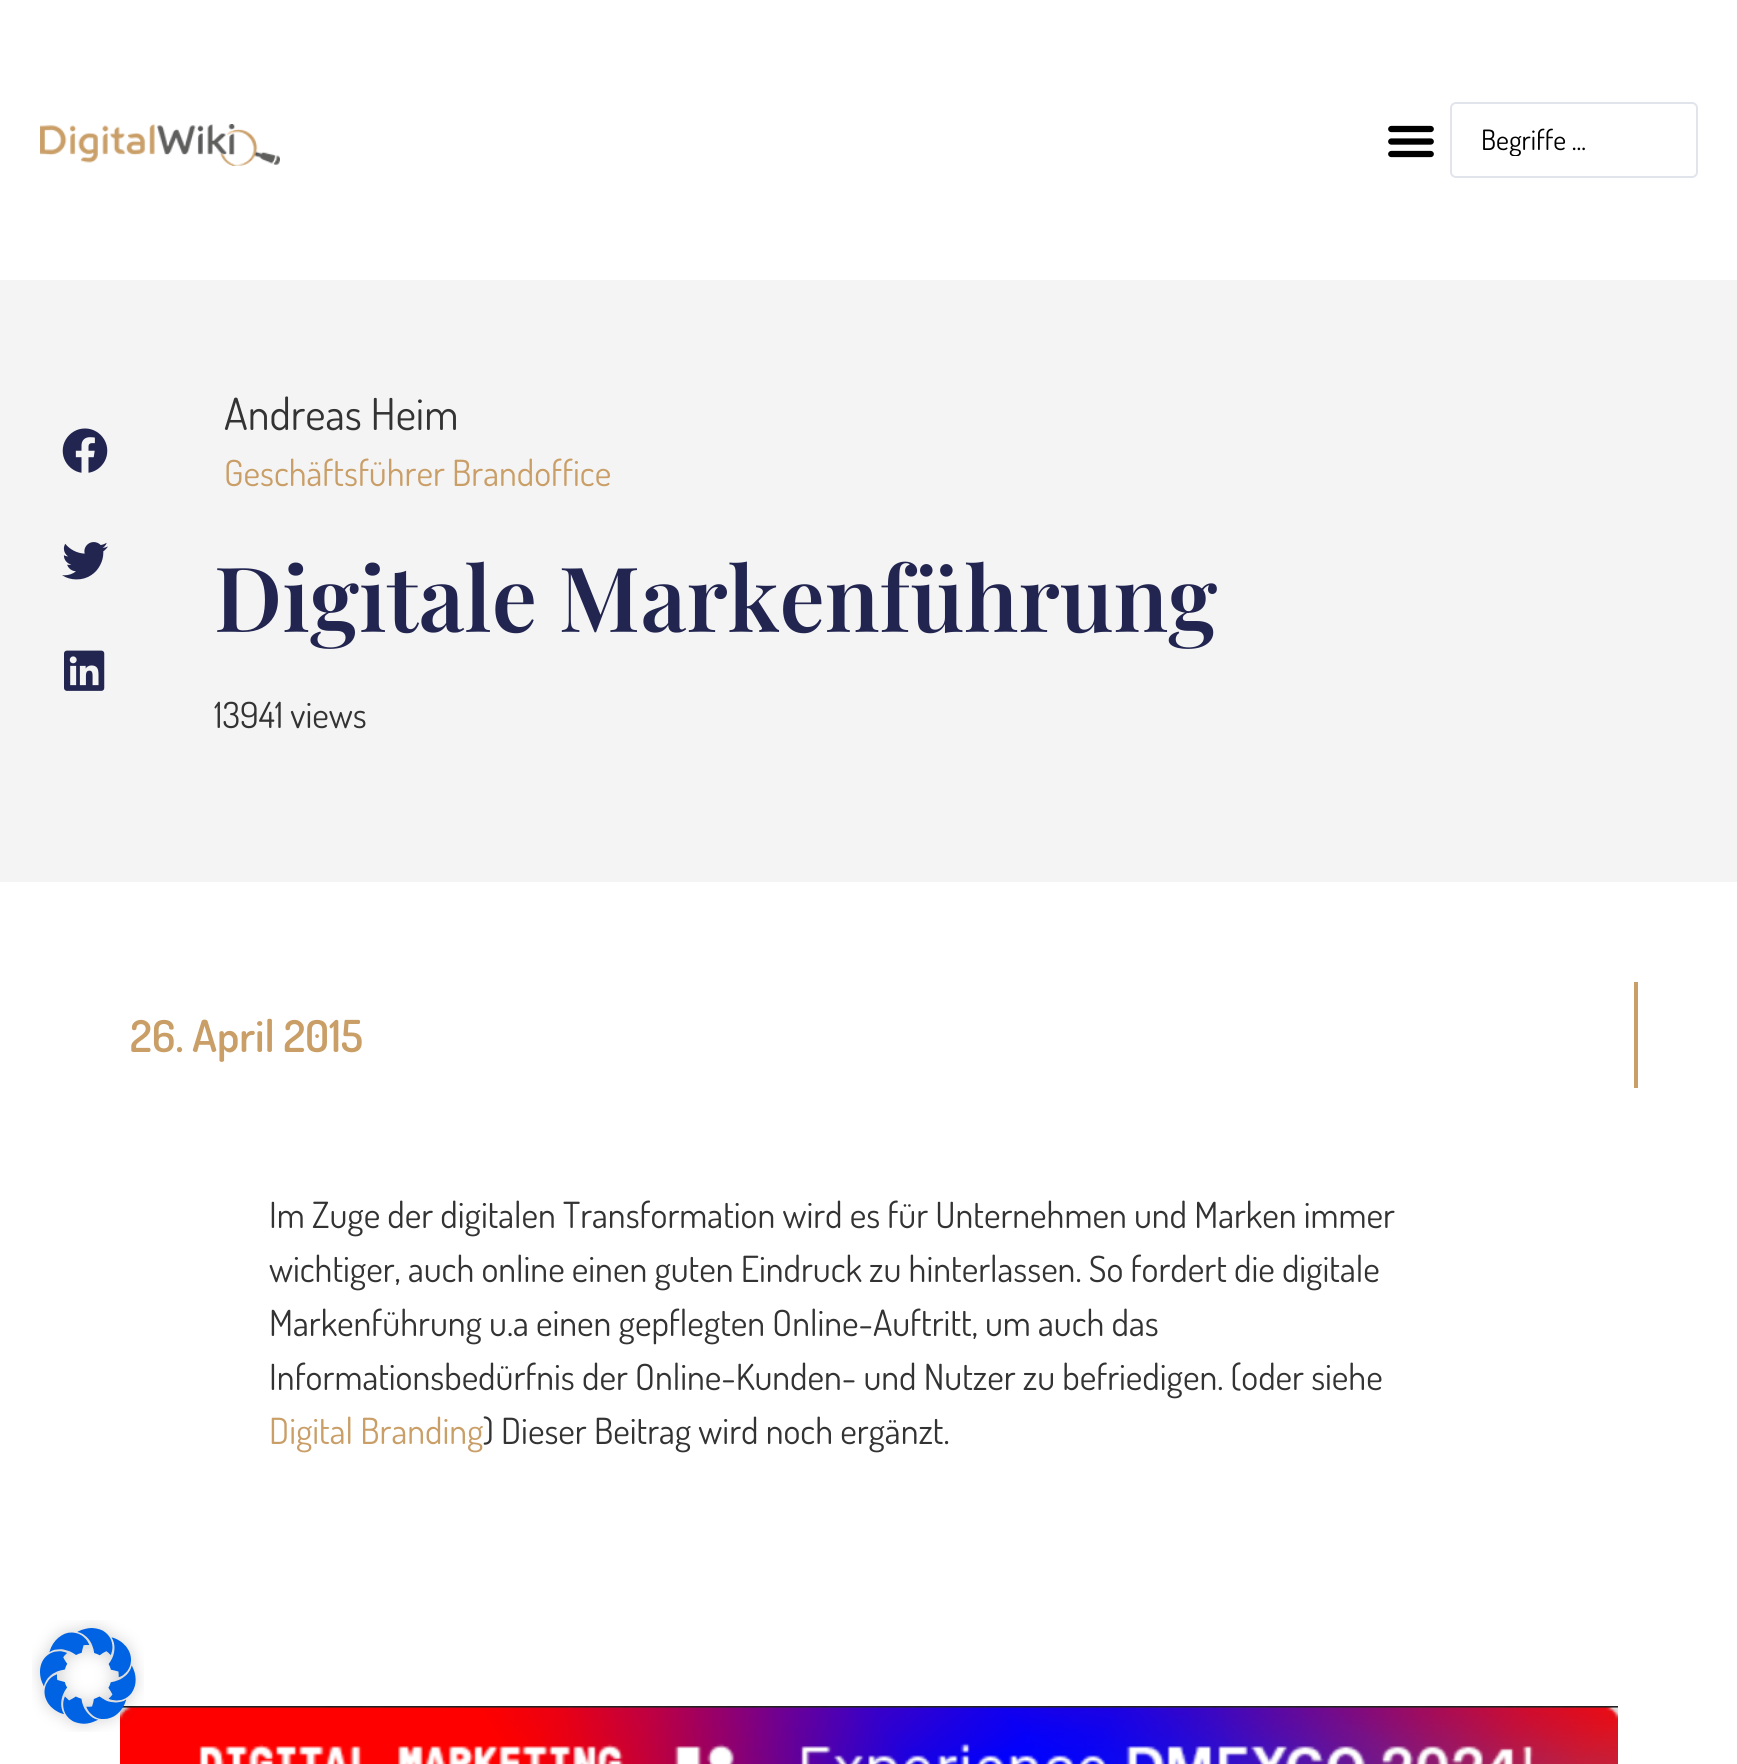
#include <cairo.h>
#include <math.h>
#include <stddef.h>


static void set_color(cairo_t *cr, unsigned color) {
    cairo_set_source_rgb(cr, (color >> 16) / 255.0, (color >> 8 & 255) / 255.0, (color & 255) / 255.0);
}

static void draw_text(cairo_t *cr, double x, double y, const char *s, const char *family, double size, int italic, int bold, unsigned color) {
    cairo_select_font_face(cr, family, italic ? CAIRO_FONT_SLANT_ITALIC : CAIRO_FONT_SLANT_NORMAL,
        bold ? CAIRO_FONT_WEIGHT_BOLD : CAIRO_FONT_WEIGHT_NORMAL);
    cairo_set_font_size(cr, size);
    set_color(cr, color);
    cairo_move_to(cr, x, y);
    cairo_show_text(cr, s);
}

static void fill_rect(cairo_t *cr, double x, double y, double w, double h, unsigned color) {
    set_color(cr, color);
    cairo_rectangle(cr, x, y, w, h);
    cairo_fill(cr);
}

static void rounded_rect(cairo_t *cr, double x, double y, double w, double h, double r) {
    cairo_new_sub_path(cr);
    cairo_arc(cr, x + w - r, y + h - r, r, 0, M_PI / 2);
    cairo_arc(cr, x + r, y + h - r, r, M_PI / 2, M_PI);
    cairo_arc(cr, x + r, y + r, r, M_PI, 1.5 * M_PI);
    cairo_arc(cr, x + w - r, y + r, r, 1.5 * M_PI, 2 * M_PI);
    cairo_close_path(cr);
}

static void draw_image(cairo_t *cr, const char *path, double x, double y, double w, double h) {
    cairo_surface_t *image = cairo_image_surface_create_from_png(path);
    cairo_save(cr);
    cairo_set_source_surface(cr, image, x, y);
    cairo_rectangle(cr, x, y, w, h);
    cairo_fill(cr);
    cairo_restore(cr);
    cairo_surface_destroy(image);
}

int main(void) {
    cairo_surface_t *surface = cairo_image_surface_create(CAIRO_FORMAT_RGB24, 1737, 1764);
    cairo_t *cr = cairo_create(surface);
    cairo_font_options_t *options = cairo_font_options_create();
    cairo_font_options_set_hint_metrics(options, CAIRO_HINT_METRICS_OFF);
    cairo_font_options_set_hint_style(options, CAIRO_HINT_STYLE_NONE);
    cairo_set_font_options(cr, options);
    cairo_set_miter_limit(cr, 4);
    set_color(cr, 0xFFFFFF);
    cairo_paint(cr);
    draw_image(cr, "assets/img1.png", 40, 124, 240, 42);
    draw_image(cr, "assets/img2.png", 1388, 125, 46, 33);
    rounded_rect(cr, 1451, 103, 246, 74, 5);
    set_color(cr, 0xE1E5EB);
    cairo_stroke(cr);
    cairo_save(cr);
    cairo_rectangle(cr, 1482, 122, 156, 34);
    cairo_clip(cr);
    draw_text(cr, 1481, 150, "Begriffe ...", "Dosis", 28, 0, 0, 0x000000);
    cairo_restore(cr);
    fill_rect(cr, 0, 280, 1737, 602, 0xF4F4F4);
    draw_image(cr, "assets/img3.png", 62, 428, 46, 45);
    draw_image(cr, "assets/img4.png", 62, 542, 46, 38);
    draw_image(cr, "assets/img5.png", 64, 650, 41, 41);
    draw_text(cr, 224, 430, "Andreas Heim", "Dosis", 44, 0, 0, 0x333333);
    draw_text(cr, 224, 486, "Geschäftsführer Brandoffice", "Dosis", 36, 0, 0, 0xC99E67);
    draw_text(cr, 214, 632, "Digitale Markenführung", "Playfair Display SemiBold", 90, 0, 0, 0x222550);
    draw_text(cr, 214, 728, "13941 views", "Dosis", 36, 0, 0, 0x333333);
    fill_rect(cr, 1634, 982, 4, 106, 0xC99E67);
    draw_text(cr, 130, 1052, "26. April 2015", "Dosis SemiBold", 44, 0, 0, 0xC99E67);
    draw_text(cr, 269, 1228, "Im Zuge der digitalen Transformation wird es für Unternehmen und Marken immer", "Dosis", 36, 0, 0, 0x333333);
    draw_text(cr, 269, 1282, "wichtiger, auch online einen guten Eindruck zu hinterlassen. So fordert die digitale", "Dosis", 36, 0, 0, 0x333333);
    draw_text(cr, 269, 1336, "Markenführung u.a einen gepflegten Online-Auftritt, um auch das", "Dosis", 36, 0, 0, 0x333333);
    draw_text(cr, 269, 1390, "Informationsbedürfnis der Online-Kunden- und Nutzer zu befriedigen. (oder siehe", "Dosis", 36, 0, 0, 0x333333);
    draw_text(cr, 269, 1444, "Digital Branding", "Dosis", 36, 0, 0, 0xC99E67);
    draw_text(cr, 483, 1444, ") Dieser Beitrag wird noch ergänzt.", "Dosis", 36, 0, 0, 0x333333);
    draw_image(cr, "assets/img6.png", 120, 1706, 1498, 58);
    draw_image(cr, "assets/img7.png", 32, 1620, 112, 112);
    cairo_surface_write_to_png(surface, "output.png");
    cairo_font_options_destroy(options);
    cairo_destroy(cr);
    cairo_surface_destroy(surface);
    return 0;
}
